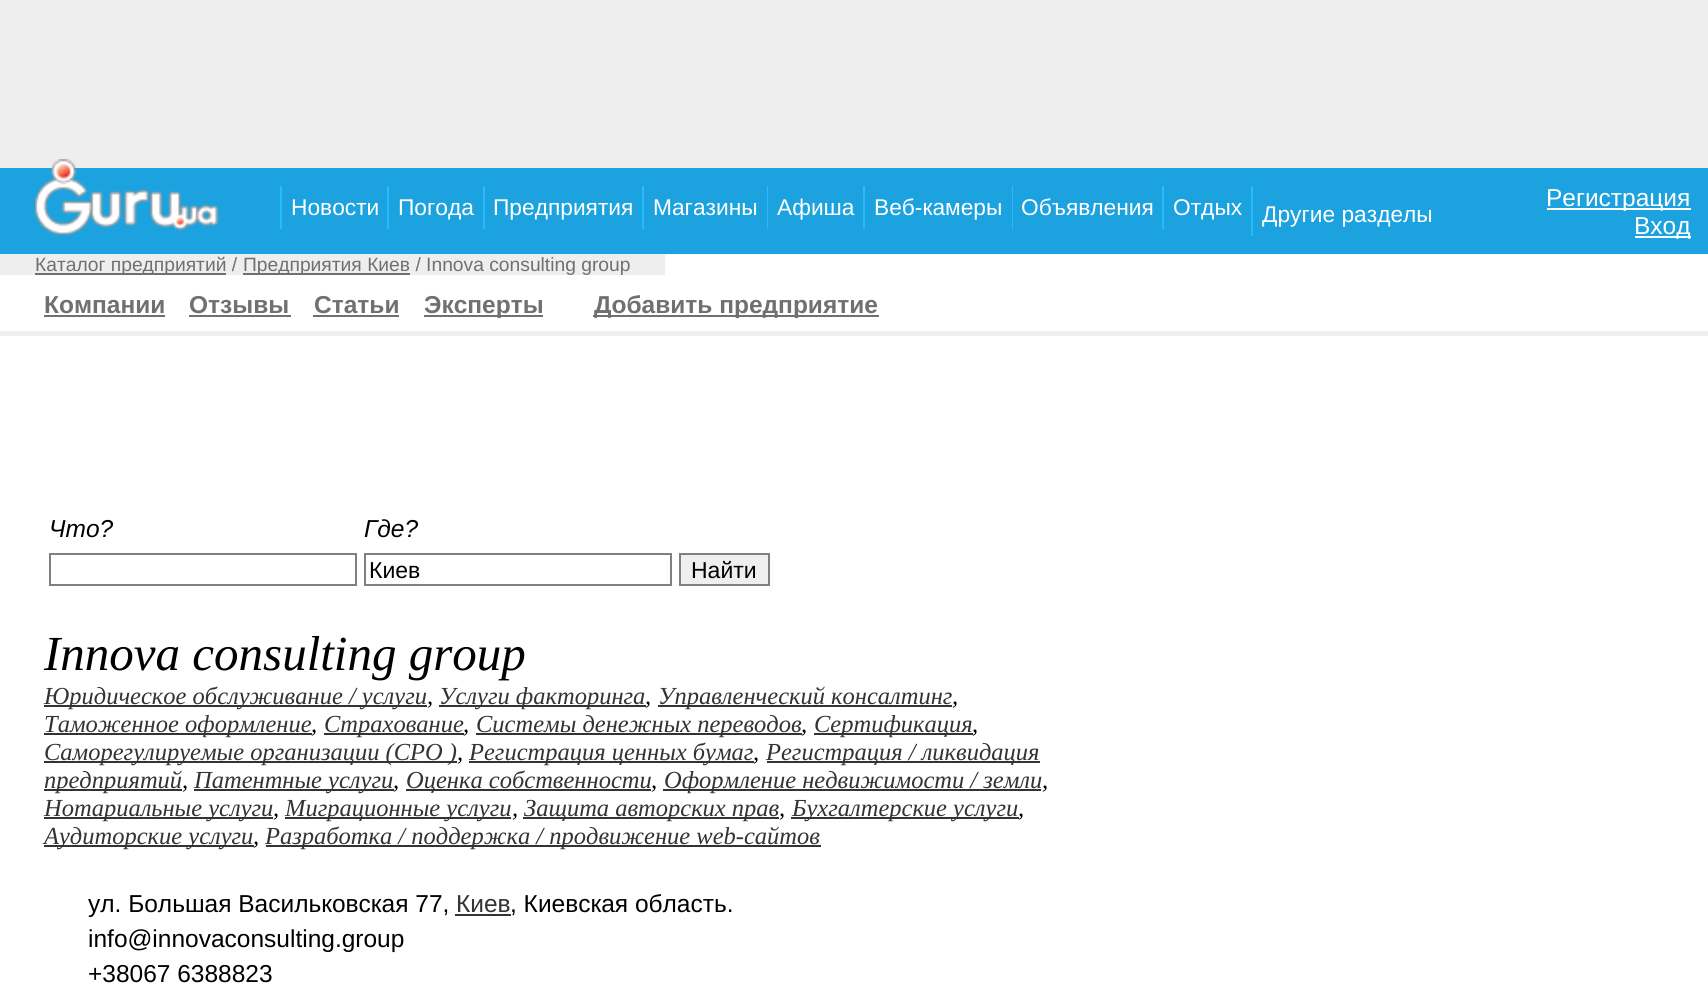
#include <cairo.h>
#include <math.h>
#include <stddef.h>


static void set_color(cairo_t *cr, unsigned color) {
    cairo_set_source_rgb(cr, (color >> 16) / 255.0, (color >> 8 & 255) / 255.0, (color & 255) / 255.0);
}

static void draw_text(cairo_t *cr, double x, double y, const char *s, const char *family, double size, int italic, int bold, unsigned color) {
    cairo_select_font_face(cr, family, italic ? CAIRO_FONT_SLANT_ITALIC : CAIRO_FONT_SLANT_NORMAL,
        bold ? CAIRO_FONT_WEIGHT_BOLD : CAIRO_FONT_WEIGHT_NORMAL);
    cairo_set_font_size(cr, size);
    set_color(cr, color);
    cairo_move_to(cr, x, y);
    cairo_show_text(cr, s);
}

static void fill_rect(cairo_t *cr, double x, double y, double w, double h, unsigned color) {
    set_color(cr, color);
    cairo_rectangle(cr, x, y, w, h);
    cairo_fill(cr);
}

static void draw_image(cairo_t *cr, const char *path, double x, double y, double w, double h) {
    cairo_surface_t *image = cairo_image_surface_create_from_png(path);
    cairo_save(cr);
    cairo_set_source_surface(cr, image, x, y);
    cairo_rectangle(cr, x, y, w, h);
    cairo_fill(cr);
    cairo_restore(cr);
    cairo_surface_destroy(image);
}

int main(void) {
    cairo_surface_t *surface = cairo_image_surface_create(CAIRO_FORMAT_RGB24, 1708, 1006);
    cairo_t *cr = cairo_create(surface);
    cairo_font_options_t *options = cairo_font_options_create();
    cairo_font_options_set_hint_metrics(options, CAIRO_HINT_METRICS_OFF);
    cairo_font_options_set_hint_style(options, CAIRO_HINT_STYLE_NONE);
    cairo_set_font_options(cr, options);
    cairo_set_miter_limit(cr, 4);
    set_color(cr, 0xFFFFFF);
    cairo_paint(cr);
    fill_rect(cr, 0, 0, 1708, 168, 0xEEEEEE);
    fill_rect(cr, 0, 168, 1708, 86, 0x1CA2DE);
    draw_image(cr, "assets/img1.png", 35, 159, 184, 76);
    fill_rect(cr, 280, 186, 2, 43, 0x25BCFF);
    draw_text(cr, 291, 215, "Новости", "Liberation Sans", 22.75, 0, 0, 0xFFFFFF);
    fill_rect(cr, 387, 186, 2, 43, 0x25BCFF);
    draw_text(cr, 398, 215, "Погода", "Liberation Sans", 22.75, 0, 0, 0xFFFFFF);
    fill_rect(cr, 483, 186, 2, 43, 0x25BCFF);
    draw_text(cr, 493, 215, "Предприятия", "Liberation Sans", 22.75, 0, 0, 0xFFFFFF);
    fill_rect(cr, 642, 186, 2, 43, 0x25BCFF);
    draw_text(cr, 653, 215, "Магазины", "Liberation Sans", 22.75, 0, 0, 0xFFFFFF);
    fill_rect(cr, 767, 186, 1, 43, 0x25BCFF);
    draw_text(cr, 777, 215, "Афиша", "Liberation Sans", 22.75, 0, 0, 0xFFFFFF);
    fill_rect(cr, 863, 186, 2, 43, 0x25BCFF);
    draw_text(cr, 874, 215, "Веб-камеры", "Liberation Sans", 22.75, 0, 0, 0xFFFFFF);
    fill_rect(cr, 1012, 186, 1, 43, 0x25BCFF);
    draw_text(cr, 1021, 215, "Объявления", "Liberation Sans", 22.75, 0, 0, 0xFFFFFF);
    fill_rect(cr, 1162, 186, 2, 43, 0x25BCFF);
    draw_text(cr, 1173, 215, "Отдых", "Liberation Sans", 22.75, 0, 0, 0xFFFFFF);
    fill_rect(cr, 1251, 186, 2, 50, 0x25BCFF);
    draw_text(cr, 1262, 222, "Другие разделы", "Liberation Sans", 22.75, 0, 0, 0xFFFFFF);
    fill_rect(cr, 1547, 208, 144, 2, 0xFFFFFF);
    draw_text(cr, 1546, 206, "Регистрация", "Liberation Sans", 24.5, 0, 0, 0xFFFFFF);
    fill_rect(cr, 1635, 236, 56, 2, 0xFFFFFF);
    draw_text(cr, 1634, 234, "Вход", "Liberation Sans", 24.5, 0, 0, 0xFFFFFF);
    fill_rect(cr, 0, 254, 665, 21, 0xEEEEEE);
    fill_rect(cr, 35, 273, 191, 2, 0x72706F);
    draw_text(cr, 35, 271, "Каталог предприятий /", "Liberation Sans", 19.25, 0, 0, 0x72706F);
    fill_rect(cr, 243, 273, 167, 2, 0x72706F);
    draw_text(cr, 243, 271, "Предприятия Киев / Innova consulting group", "Liberation Sans", 19.25, 0, 0, 0x72706F);
    draw_text(cr, 44, 313, "Компании", "Liberation Sans", 24.5, 0, 1, 0x72706F);
    fill_rect(cr, 44, 315, 121, 2, 0x72706F);
    draw_text(cr, 189, 313, "Отзывы", "Liberation Sans", 24.5, 0, 1, 0x72706F);
    fill_rect(cr, 189, 315, 102, 2, 0x72706F);
    draw_text(cr, 314, 313, "Статьи", "Liberation Sans", 24.5, 0, 1, 0x72706F);
    fill_rect(cr, 313, 315, 86, 2, 0x72706F);
    fill_rect(cr, 424, 315, 119, 2, 0x72706F);
    draw_text(cr, 424, 313, "Эксперты", "Liberation Sans", 24.5, 0, 1, 0x72706F);
    fill_rect(cr, 593, 315, 286, 2, 0x72706F);
    draw_text(cr, 594, 313, "Добавить предприятие", "Liberation Sans", 24.5, 0, 1, 0x72706F);
    fill_rect(cr, 0, 331, 1708, 5, 0xEEEEEE);
    draw_text(cr, 49, 537, "Что?", "Liberation Sans", 24.5, 1, 0, 0x000000);
    draw_text(cr, 364, 537, "Где?", "Liberation Sans", 24.5, 1, 0, 0x000000);
    cairo_rectangle(cr, 50, 554, 306, 31);
    set_color(cr, 0x808080);
    cairo_stroke(cr);
    cairo_rectangle(cr, 365, 554, 306, 31);
    cairo_stroke(cr);
    draw_text(cr, 369, 578, "Киев", "Liberation Sans", 23, 0, 0, 0x000000);
    set_color(cr, 0xEFEFEF);
    cairo_rectangle(cr, 680, 554, 89, 31);
    cairo_fill_preserve(cr);
    set_color(cr, 0x808080);
    cairo_stroke(cr);
    draw_text(cr, 691, 578, "Найти", "Liberation Sans", 23, 0, 0, 0x000000);
    draw_text(cr, 44, 670, "Innova consulting group", "Liberation Serif", 49, 1, 0, 0x000000);
    fill_rect(cr, 44, 705, 383, 2, 0x333333);
    draw_text(cr, 44, 704, "Юридическое обслуживание / услуги", "Liberation Serif", 24.5, 1, 0, 0x333333);
    draw_text(cr, 427, 704, ",", "Liberation Serif", 24.5, 1, 0, 0x000000);
    fill_rect(cr, 439, 705, 207, 2, 0x333333);
    draw_text(cr, 439, 704, "Услуги факторинга", "Liberation Serif", 24.5, 1, 0, 0x333333);
    draw_text(cr, 645, 704, ",", "Liberation Serif", 24.5, 1, 0, 0x000000);
    fill_rect(cr, 658, 705, 294, 2, 0x333333);
    draw_text(cr, 658, 704, "Управленческий консалтинг", "Liberation Serif", 24.5, 1, 0, 0x333333);
    draw_text(cr, 952, 704, ",", "Liberation Serif", 24.5, 1, 0, 0x000000);
    fill_rect(cr, 44, 733, 268, 2, 0x333333);
    draw_text(cr, 44, 732, "Таможенное оформление", "Liberation Serif", 24.5, 1, 0, 0x333333);
    draw_text(cr, 311, 732, ",", "Liberation Serif", 24.5, 1, 0, 0x000000);
    fill_rect(cr, 324, 733, 140, 2, 0x333333);
    draw_text(cr, 324, 732, "Страхование", "Liberation Serif", 24.5, 1, 0, 0x333333);
    draw_text(cr, 463, 732, ",", "Liberation Serif", 24.5, 1, 0, 0x000000);
    fill_rect(cr, 476, 733, 326, 2, 0x333333);
    draw_text(cr, 476, 732, "Системы денежных переводов", "Liberation Serif", 24.5, 1, 0, 0x333333);
    draw_text(cr, 801, 732, ",", "Liberation Serif", 24.5, 1, 0, 0x000000);
    fill_rect(cr, 814, 733, 159, 2, 0x333333);
    draw_text(cr, 814, 732, "Сертификация", "Liberation Serif", 24.5, 1, 0, 0x333333);
    draw_text(cr, 972, 732, ",", "Liberation Serif", 24.5, 1, 0, 0x000000);
    fill_rect(cr, 44, 761, 413, 2, 0x333333);
    draw_text(cr, 44, 760, "Саморегулируемые организации (СРО )", "Liberation Serif", 24.5, 1, 0, 0x333333);
    draw_text(cr, 457, 760, ",", "Liberation Serif", 24.5, 1, 0, 0x000000);
    fill_rect(cr, 469, 761, 285, 2, 0x333333);
    draw_text(cr, 469, 760, "Регистрация ценных бумаг", "Liberation Serif", 24.5, 1, 0, 0x333333);
    draw_text(cr, 753, 760, ",", "Liberation Serif", 24.5, 1, 0, 0x000000);
    fill_rect(cr, 767, 761, 273, 2, 0x333333);
    draw_text(cr, 766, 760, "Регистрация / ликвидация", "Liberation Serif", 24.5, 1, 0, 0x333333);
    fill_rect(cr, 44, 789, 138, 2, 0x333333);
    draw_text(cr, 44, 788, "предприятий", "Liberation Serif", 24.5, 1, 0, 0x333333);
    draw_text(cr, 182, 788, ",", "Liberation Serif", 24.5, 1, 0, 0x000000);
    fill_rect(cr, 194, 789, 200, 2, 0x333333);
    draw_text(cr, 194, 788, "Патентные услуги", "Liberation Serif", 24.5, 1, 0, 0x333333);
    draw_text(cr, 393, 788, ",", "Liberation Serif", 24.5, 1, 0, 0x000000);
    fill_rect(cr, 406, 789, 245, 2, 0x333333);
    draw_text(cr, 406, 788, "Оценка собственности", "Liberation Serif", 24.5, 1, 0, 0x333333);
    draw_text(cr, 651, 788, ",", "Liberation Serif", 24.5, 1, 0, 0x000000);
    fill_rect(cr, 663, 789, 378, 2, 0x333333);
    draw_text(cr, 664, 788, "Оформление недвижимости / земли", "Liberation Serif", 24.5, 1, 0, 0x333333);
    draw_text(cr, 1042, 788, ",", "Liberation Serif", 24.5, 1, 0, 0x000000);
    fill_rect(cr, 44, 817, 229, 2, 0x333333);
    draw_text(cr, 44, 816, "Нотариальные услуги", "Liberation Serif", 24.5, 1, 0, 0x333333);
    draw_text(cr, 273, 816, ",", "Liberation Serif", 24.5, 1, 0, 0x000000);
    fill_rect(cr, 285, 817, 226, 2, 0x333333);
    draw_text(cr, 285, 816, "Миграционные услуги", "Liberation Serif", 24.5, 1, 0, 0x333333);
    draw_text(cr, 512, 816, ",", "Liberation Serif", 24.5, 1, 0, 0x000000);
    fill_rect(cr, 523, 817, 256, 2, 0x333333);
    draw_text(cr, 524, 816, "Защита авторских прав", "Liberation Serif", 24.5, 1, 0, 0x333333);
    draw_text(cr, 779, 816, ",", "Liberation Serif", 24.5, 1, 0, 0x000000);
    fill_rect(cr, 791, 817, 228, 2, 0x333333);
    draw_text(cr, 792, 816, "Бухгалтерские услуги", "Liberation Serif", 24.5, 1, 0, 0x333333);
    draw_text(cr, 1018, 816, ",", "Liberation Serif", 24.5, 1, 0, 0x000000);
    fill_rect(cr, 44, 845, 210, 2, 0x333333);
    draw_text(cr, 44, 844, "Аудиторские услуги", "Liberation Serif", 24.5, 1, 0, 0x333333);
    draw_text(cr, 253, 844, ",", "Liberation Serif", 24.5, 1, 0, 0x000000);
    fill_rect(cr, 266, 845, 555, 2, 0x333333);
    draw_text(cr, 265, 844, "Разработка / поддержка / продвижение web-сайтов", "Liberation Serif", 24.5, 1, 0, 0x333333);
    draw_text(cr, 88, 912, "ул. Большая Васильковская 77,", "Liberation Sans", 24.5, 0, 0, 0x000000);
    draw_text(cr, 456, 912, "Киев", "Liberation Sans", 24.5, 0, 0, 0x333333);
    draw_text(cr, 510, 912, ", Киевская область.", "Liberation Sans", 24.5, 0, 0, 0x000000);
    fill_rect(cr, 455, 914, 56, 2, 0x333333);
    draw_text(cr, 88, 947, "info@innovaconsulting.group", "Liberation Sans", 24.5, 0, 0, 0x000000);
    draw_text(cr, 88, 982, "+38067 6388823", "Liberation Sans", 24.5, 0, 0, 0x000000);
    cairo_surface_write_to_png(surface, "output.png");
    cairo_font_options_destroy(options);
    cairo_destroy(cr);
    cairo_surface_destroy(surface);
    return 0;
}
